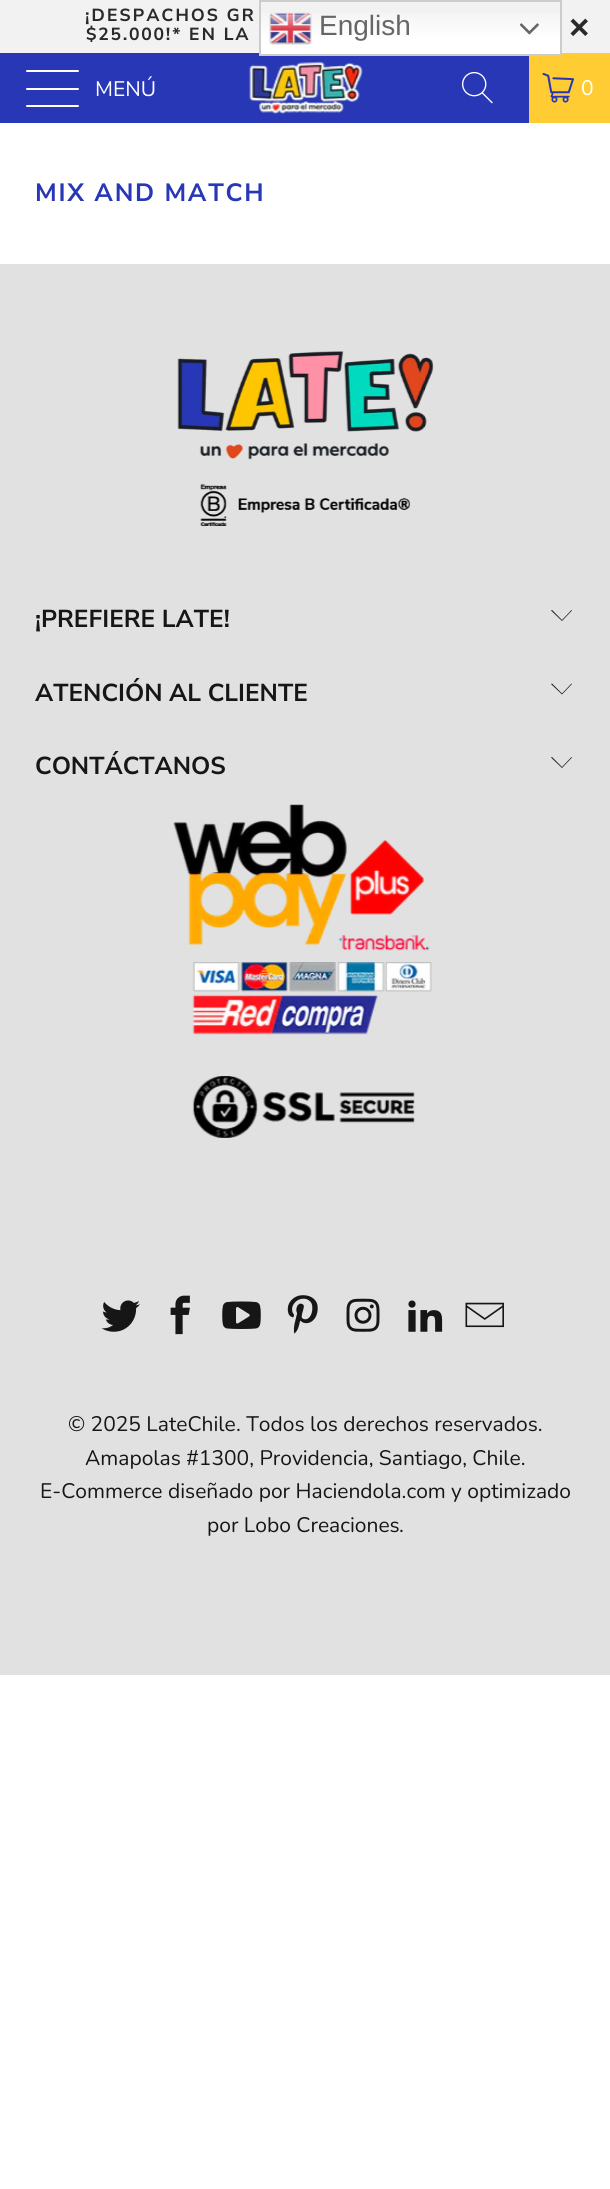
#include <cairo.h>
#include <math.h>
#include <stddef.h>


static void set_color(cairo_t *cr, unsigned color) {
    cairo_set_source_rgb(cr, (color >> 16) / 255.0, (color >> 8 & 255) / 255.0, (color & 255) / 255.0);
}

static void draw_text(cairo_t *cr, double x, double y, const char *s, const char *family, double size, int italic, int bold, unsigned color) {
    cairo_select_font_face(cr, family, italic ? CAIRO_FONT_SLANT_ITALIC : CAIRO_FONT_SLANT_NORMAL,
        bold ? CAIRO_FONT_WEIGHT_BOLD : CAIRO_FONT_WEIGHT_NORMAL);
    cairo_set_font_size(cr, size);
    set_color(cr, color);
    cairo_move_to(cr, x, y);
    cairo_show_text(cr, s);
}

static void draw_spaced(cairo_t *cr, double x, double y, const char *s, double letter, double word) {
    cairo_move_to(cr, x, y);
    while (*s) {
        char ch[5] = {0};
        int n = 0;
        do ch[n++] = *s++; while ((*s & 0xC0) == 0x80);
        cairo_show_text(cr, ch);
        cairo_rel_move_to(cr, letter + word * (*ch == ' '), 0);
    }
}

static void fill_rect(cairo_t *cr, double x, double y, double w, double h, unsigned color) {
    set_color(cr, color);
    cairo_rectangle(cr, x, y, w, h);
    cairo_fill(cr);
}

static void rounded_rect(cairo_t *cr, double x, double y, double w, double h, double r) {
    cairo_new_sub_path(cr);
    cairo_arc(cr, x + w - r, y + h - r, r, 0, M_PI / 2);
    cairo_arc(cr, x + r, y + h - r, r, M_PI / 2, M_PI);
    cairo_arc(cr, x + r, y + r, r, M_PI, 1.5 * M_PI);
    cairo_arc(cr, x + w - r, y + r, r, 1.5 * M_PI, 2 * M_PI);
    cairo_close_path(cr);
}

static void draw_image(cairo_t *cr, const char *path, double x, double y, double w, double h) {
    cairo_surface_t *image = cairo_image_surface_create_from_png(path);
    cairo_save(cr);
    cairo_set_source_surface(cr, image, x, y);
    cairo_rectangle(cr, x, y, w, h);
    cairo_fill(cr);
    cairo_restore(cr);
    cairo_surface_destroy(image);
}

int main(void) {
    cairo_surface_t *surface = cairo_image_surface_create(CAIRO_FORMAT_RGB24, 610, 2189);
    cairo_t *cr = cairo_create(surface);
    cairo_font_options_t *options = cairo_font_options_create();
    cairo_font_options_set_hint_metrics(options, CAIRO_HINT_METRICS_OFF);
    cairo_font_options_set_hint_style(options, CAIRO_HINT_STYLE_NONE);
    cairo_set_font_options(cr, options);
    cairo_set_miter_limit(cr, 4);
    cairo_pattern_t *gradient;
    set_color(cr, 0xFFFFFF);
    cairo_paint(cr);
    fill_rect(cr, 0, 0, 610, 53, 0xF2F2F2);
    cairo_select_font_face(cr, "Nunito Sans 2", CAIRO_FONT_SLANT_NORMAL, CAIRO_FONT_WEIGHT_BOLD);
    cairo_set_font_size(cr, 17.5);
    set_color(cr, 0x2B2A2A);
    draw_spaced(cr, 85, 21, "¡DESPACHOS GR", 1.75, 0);
    draw_spaced(cr, 86, 40, "$25.000!* EN LA", 1.75, 0);
    cairo_select_font_face(cr, "Liberation Sans", CAIRO_FONT_SLANT_NORMAL, CAIRO_FONT_WEIGHT_BOLD);
    cairo_set_font_size(cr, 35);
    draw_spaced(cr, 569, 39, "×", 1.75, 0);
    fill_rect(cr, 0, 53, 529, 70, 0x2737B6);
    set_color(cr, 0xFFFFFF);
    rounded_rect(cr, 26, 70, 53, 2, 1);
    cairo_fill(cr);
    rounded_rect(cr, 26, 88, 53, 2, 1);
    cairo_fill(cr);
    rounded_rect(cr, 26, 105, 53, 2, 1);
    cairo_fill(cr);
    draw_text(cr, 95, 96, "MENÚ", "Nunito Sans", 21, 0, 0, 0xFFFFFF);
    draw_image(cr, "assets/img1.png", 249, 61, 114, 53);
    draw_image(cr, "assets/img2.png", 461, 71, 32, 33);
    fill_rect(cr, 529, 53, 81, 70, 0xFFCC33);
    draw_image(cr, "assets/img3.png", 542, 72, 32, 31);
    draw_text(cr, 581, 95, "0", "Nunito Sans", 21, 0, 0, 0xFFFFFF);
    gradient = cairo_pattern_create_linear(410, 0, 410, 56);
    cairo_pattern_add_color_stop_rgba(gradient, 0, 0.937, 0.937, 0.937, 1);
    cairo_pattern_add_color_stop_rgba(gradient, 0.7, 1, 1, 1, 1);
    cairo_set_source(cr, gradient);
    cairo_pattern_destroy(gradient);
    cairo_rectangle(cr, 261, 13, 299, 41);
    cairo_fill(cr);
    cairo_rectangle(cr, 260, 1, 301, 54);
    set_color(cr, 0xCCCCCC);
    cairo_stroke(cr);
    draw_image(cr, "assets/img4.png", 269, 12, 43, 33);
    draw_text(cr, 319, 35, "English", "Liberation Sans", 28, 0, 0, 0x666666);
    draw_image(cr, "assets/img5.png", 520, 23, 19, 12);
    cairo_select_font_face(cr, "Nunito Sans", CAIRO_FONT_SLANT_NORMAL, CAIRO_FONT_WEIGHT_BOLD);
    cairo_set_font_size(cr, 25);
    set_color(cr, 0x2737B6);
    draw_spaced(cr, 35, 201, "MIX AND MATCH", 1.75, 0);
    fill_rect(cr, 0, 264, 610, 1411, 0xE1E1E1);
    draw_image(cr, "assets/img6.png", 177, 351, 257, 176);
    draw_text(cr, 35, 627, "¡PREFIERE LATE!", "Nunito Sans", 24.5, 0, 1, 0x161616);
    cairo_new_path(cr);
    cairo_move_to(cr, 562, 621);
    cairo_line_to(cr, 551, 610.5);
    cairo_line_to(cr, 552, 610);
    cairo_line_to(cr, 562, 620);
    cairo_line_to(cr, 571.5, 610);
    cairo_line_to(cr, 572, 610.5);
    cairo_close_path(cr);
    cairo_fill(cr);
    draw_text(cr, 35, 701, "ATENCIÓN AL CLIENTE", "Nunito Sans", 24.5, 0, 1, 0x161616);
    cairo_new_path(cr);
    cairo_move_to(cr, 562, 694.5);
    cairo_line_to(cr, 551, 684);
    cairo_line_to(cr, 552, 683.5);
    cairo_line_to(cr, 562, 693.5);
    cairo_line_to(cr, 571.5, 683.5);
    cairo_line_to(cr, 572, 684);
    cairo_close_path(cr);
    cairo_fill(cr);
    draw_text(cr, 35, 774, "CONTÁCTANOS", "Nunito Sans", 24.5, 0, 1, 0x161616);
    cairo_new_path(cr);
    cairo_move_to(cr, 562, 768);
    cairo_line_to(cr, 551, 757.5);
    cairo_line_to(cr, 552, 757);
    cairo_line_to(cr, 562, 767);
    cairo_line_to(cr, 571.5, 757);
    cairo_line_to(cr, 572, 757.5);
    cairo_close_path(cr);
    cairo_fill(cr);
    draw_image(cr, "assets/img7.png", 173, 804, 259, 334);
    draw_image(cr, "assets/img8.png", 101, 1300, 39, 32);
    draw_image(cr, "assets/img9.png", 170, 1295, 20, 40);
    draw_image(cr, "assets/img10.png", 222, 1301, 39, 28);
    draw_image(cr, "assets/img11.png", 287, 1295, 31, 39);
    draw_image(cr, "assets/img12.png", 346, 1298, 34, 34);
    draw_image(cr, "assets/img13.png", 408, 1300, 35, 32);
    draw_image(cr, "assets/img14.png", 465, 1302, 39, 26);
    draw_text(cr, 68, 1431, "© 2025 LateChile", "Nunito", 21, 0, 0, 0x161616);
    draw_text(cr, 236, 1431, ". Todos los derechos reservados.", "Nunito", 21, 0, 0, 0x161616);
    draw_text(cr, 85, 1465, "Amapolas #1300, Providencia, Santiago, Chile.", "Nunito", 21, 0, 0, 0x161616);
    draw_text(cr, 40, 1498, "E-Commerce diseñado por Haciendola.com", "Nunito", 21, 0, 0, 0x161616);
    draw_text(cr, 451, 1498, "y optimizado", "Nunito", 21, 0, 0, 0x161616);
    draw_text(cr, 207, 1532, "por Lobo Creaciones", "Nunito", 21, 0, 0, 0x161616);
    draw_text(cr, 399, 1532, ".", "Nunito", 21, 0, 0, 0x161616);
    cairo_surface_write_to_png(surface, "output.png");
    cairo_font_options_destroy(options);
    cairo_destroy(cr);
    cairo_surface_destroy(surface);
    return 0;
}
